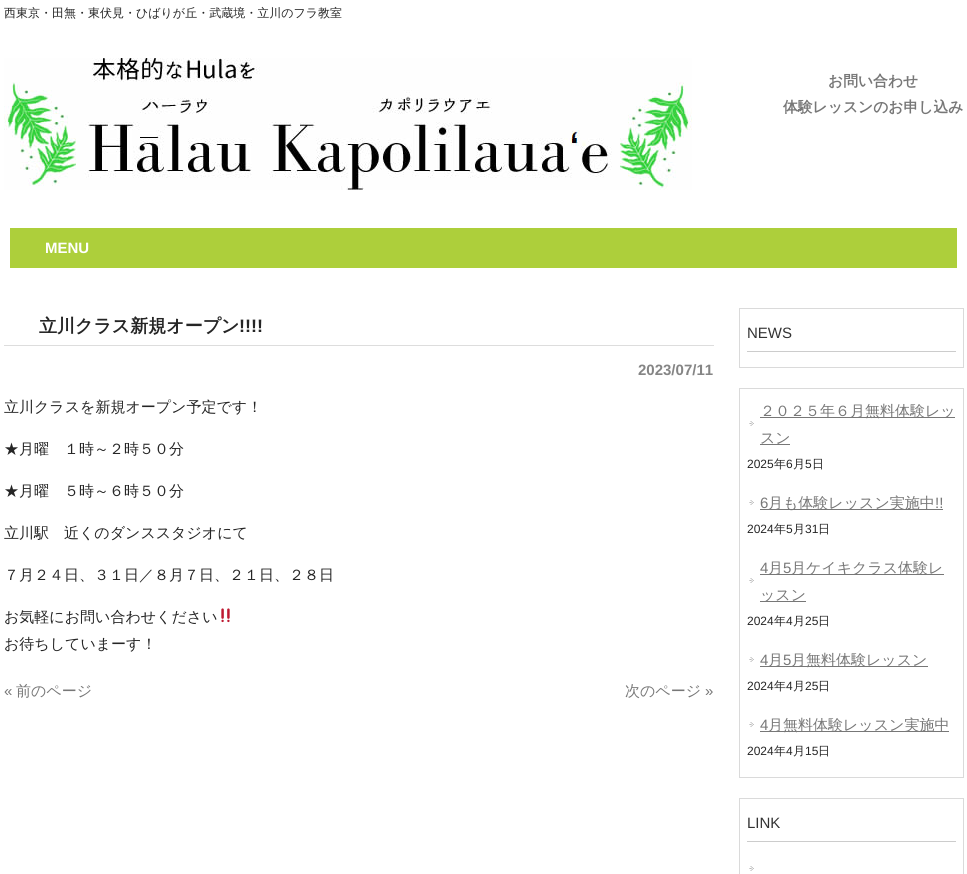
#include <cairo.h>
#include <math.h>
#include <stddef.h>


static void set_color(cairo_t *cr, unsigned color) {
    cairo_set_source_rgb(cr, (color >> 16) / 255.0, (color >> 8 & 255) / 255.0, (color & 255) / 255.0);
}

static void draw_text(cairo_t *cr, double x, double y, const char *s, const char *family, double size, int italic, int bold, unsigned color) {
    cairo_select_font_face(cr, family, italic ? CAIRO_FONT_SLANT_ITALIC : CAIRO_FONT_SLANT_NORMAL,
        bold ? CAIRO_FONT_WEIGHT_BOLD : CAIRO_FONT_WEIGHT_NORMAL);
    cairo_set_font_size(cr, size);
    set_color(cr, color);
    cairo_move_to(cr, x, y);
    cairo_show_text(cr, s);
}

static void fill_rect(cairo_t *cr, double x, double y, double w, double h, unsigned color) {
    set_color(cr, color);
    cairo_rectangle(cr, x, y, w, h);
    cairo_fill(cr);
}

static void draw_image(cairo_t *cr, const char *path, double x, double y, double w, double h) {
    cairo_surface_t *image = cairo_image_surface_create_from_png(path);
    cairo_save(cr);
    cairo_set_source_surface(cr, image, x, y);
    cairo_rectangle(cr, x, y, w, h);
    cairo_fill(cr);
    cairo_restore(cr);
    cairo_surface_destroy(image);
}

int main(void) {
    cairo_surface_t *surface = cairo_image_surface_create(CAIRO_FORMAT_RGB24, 967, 874);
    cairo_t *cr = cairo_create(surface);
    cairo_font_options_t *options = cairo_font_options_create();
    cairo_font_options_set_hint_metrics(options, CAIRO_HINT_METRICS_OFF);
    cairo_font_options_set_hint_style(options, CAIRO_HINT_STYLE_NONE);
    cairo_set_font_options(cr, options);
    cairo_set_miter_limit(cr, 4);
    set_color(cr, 0xFFFFFF);
    cairo_paint(cr);
    draw_text(cr, 4, 17, "西東京・田無・東伏見・ひばりが丘・武蔵境・立川のフラ教室", "WenQuanYi Zen Hei Medium", 12, 0, 0, 0x252525);
    draw_image(cr, "assets/img1.png", 4, 58, 688, 132);
    draw_text(cr, 828, 86, "お問い合わせ", "WenQuanYi Zen Hei", 14.8, 0, 1, 0x777777);
    draw_text(cr, 783, 112, "体験レッスンのお申し込み", "WenQuanYi Zen Hei", 14.8, 0, 1, 0x777777);
    fill_rect(cr, 10, 228, 947, 40, 0xADCF3B);
    draw_text(cr, 45, 253, "MENU", "Liberation Sans", 15, 0, 1, 0xFFFFFF);
    fill_rect(cr, 4, 345, 710, 1, 0xDDDDDD);
    draw_text(cr, 39, 332, "立川クラス新規オープン", "WenQuanYi Zen Hei", 18, 0, 1, 0x252525);
    draw_text(cr, 239, 332, "!!!!", "Liberation Sans", 18, 0, 1, 0x252525);
    draw_text(cr, 638, 375, "2023/07/11", "Liberation Sans", 15, 0, 1, 0x858585);
    draw_text(cr, 4, 412, "立川クラスを新規オープン予定です！", "WenQuanYi Zen Hei Medium", 15, 0, 0, 0x252525);
    draw_text(cr, 4, 454, "★月曜　１時～２時５０分", "WenQuanYi Zen Hei Medium", 15, 0, 0, 0x252525);
    draw_text(cr, 4, 496, "★月曜　５時～６時５０分", "WenQuanYi Zen Hei Medium", 15, 0, 0, 0x252525);
    draw_text(cr, 4, 538, "立川駅　近くのダンススタジオにて", "WenQuanYi Zen Hei Medium", 15, 0, 0, 0x252525);
    draw_text(cr, 4, 580, "７月２４日、３１日／８月７日、２１日、２８日", "WenQuanYi Zen Hei Medium", 15, 0, 0, 0x252525);
    draw_text(cr, 4, 622, "お気軽にお問い合わせください", "WenQuanYi Zen Hei Medium", 15, 0, 0, 0x252525);
    draw_image(cr, "assets/img2.png", 221, 608, 9, 15);
    draw_text(cr, 4, 649, "お待ちしていまーす！", "WenQuanYi Zen Hei Medium", 15, 0, 0, 0x252525);
    draw_text(cr, 4, 696, "«", "Liberation Sans", 15, 0, 0, 0x777777);
    draw_text(cr, 16, 696, "前のページ", "WenQuanYi Zen Hei Medium", 15, 0, 0, 0x777777);
    draw_text(cr, 625, 696, "次のページ", "WenQuanYi Zen Hei Medium", 15, 0, 0, 0x777777);
    draw_text(cr, 705, 696, "»", "Liberation Sans", 15, 0, 0, 0x777777);
    cairo_rectangle(cr, 739.5, 308.5, 224, 59);
    set_color(cr, 0xDADADA);
    cairo_set_line_width(cr, 1);
    cairo_stroke(cr);
    fill_rect(cr, 747, 351, 209, 1, 0xCCCCCC);
    draw_text(cr, 747, 338, "NEWS", "Liberation Sans", 15, 0, 0, 0x333333);
    cairo_rectangle(cr, 739.5, 388.5, 224, 389);
    set_color(cr, 0xDADADA);
    cairo_stroke(cr);
    draw_image(cr, "assets/img3.png", 749, 421, 5, 5);
    fill_rect(cr, 760, 417, 195, 1, 0x777777);
    draw_text(cr, 760, 416, "２０２５年６月無料体験レッ", "WenQuanYi Zen Hei Medium", 15, 0, 0, 0x777777);
    fill_rect(cr, 760, 444, 30, 1, 0x777777);
    draw_text(cr, 760, 443, "スン", "WenQuanYi Zen Hei Medium", 15, 0, 0, 0x777777);
    draw_text(cr, 747, 468, "2025", "Liberation Sans", 12, 0, 0, 0x252525);
    draw_text(cr, 774, 468, "年", "WenQuanYi Zen Hei Medium", 12, 0, 0, 0x252525);
    draw_text(cr, 786, 468, "6", "Liberation Sans", 12, 0, 0, 0x252525);
    draw_text(cr, 793, 468, "月", "WenQuanYi Zen Hei Medium", 12, 0, 0, 0x252525);
    draw_text(cr, 805, 468, "5", "Liberation Sans", 12, 0, 0, 0x252525);
    draw_text(cr, 812, 468, "日", "WenQuanYi Zen Hei Medium", 12, 0, 0, 0x252525);
    draw_image(cr, "assets/img3.png", 749, 500, 5, 5);
    draw_text(cr, 760, 508, "6", "Liberation Sans", 15, 0, 0, 0x777777);
    fill_rect(cr, 760, 509, 183, 1, 0x777777);
    draw_text(cr, 768, 508, "月も体験レッスン実施中", "WenQuanYi Zen Hei Medium", 15, 0, 0, 0x777777);
    draw_text(cr, 935, 508, "!!", "Liberation Sans", 15, 0, 0, 0x777777);
    draw_text(cr, 747, 533, "2024", "Liberation Sans", 12, 0, 0, 0x252525);
    draw_text(cr, 774, 533, "年", "WenQuanYi Zen Hei Medium", 12, 0, 0, 0x252525);
    draw_text(cr, 786, 533, "5", "Liberation Sans", 12, 0, 0, 0x252525);
    draw_text(cr, 793, 533, "月", "WenQuanYi Zen Hei Medium", 12, 0, 0, 0x252525);
    draw_text(cr, 805, 533, "31", "Liberation Sans", 12, 0, 0, 0x252525);
    draw_text(cr, 818, 533, "日", "WenQuanYi Zen Hei Medium", 12, 0, 0, 0x252525);
    draw_image(cr, "assets/img3.png", 749, 578, 5, 5);
    draw_text(cr, 760, 573, "4", "Liberation Sans", 15, 0, 0, 0x777777);
    fill_rect(cr, 760, 574, 184, 1, 0x777777);
    draw_text(cr, 768, 573, "月", "WenQuanYi Zen Hei Medium", 15, 0, 0, 0x777777);
    draw_text(cr, 783, 573, "5", "Liberation Sans", 15, 0, 0, 0x777777);
    draw_text(cr, 791, 573, "月ケイキクラス体験レ", "WenQuanYi Zen Hei Medium", 15, 0, 0, 0x777777);
    fill_rect(cr, 760, 601, 46, 1, 0x777777);
    draw_text(cr, 760, 600, "ッスン", "WenQuanYi Zen Hei Medium", 15, 0, 0, 0x777777);
    draw_text(cr, 747, 625, "2024", "Liberation Sans", 12, 0, 0, 0x252525);
    draw_text(cr, 774, 625, "年", "WenQuanYi Zen Hei Medium", 12, 0, 0, 0x252525);
    draw_text(cr, 786, 625, "4", "Liberation Sans", 12, 0, 0, 0x252525);
    draw_text(cr, 793, 625, "月", "WenQuanYi Zen Hei Medium", 12, 0, 0, 0x252525);
    draw_text(cr, 805, 625, "25", "Liberation Sans", 12, 0, 0, 0x252525);
    draw_text(cr, 818, 625, "日", "WenQuanYi Zen Hei Medium", 12, 0, 0, 0x252525);
    draw_image(cr, "assets/img3.png", 749, 657, 5, 5);
    draw_text(cr, 760, 665, "4", "Liberation Sans", 15, 0, 0, 0x777777);
    fill_rect(cr, 760, 666, 168, 1, 0x777777);
    draw_text(cr, 768, 665, "月", "WenQuanYi Zen Hei Medium", 15, 0, 0, 0x777777);
    draw_text(cr, 783, 665, "5", "Liberation Sans", 15, 0, 0, 0x777777);
    draw_text(cr, 791, 665, "月無料体験レッスン", "WenQuanYi Zen Hei Medium", 15, 0, 0, 0x777777);
    draw_text(cr, 747, 690, "2024", "Liberation Sans", 12, 0, 0, 0x252525);
    draw_text(cr, 774, 690, "年", "WenQuanYi Zen Hei Medium", 12, 0, 0, 0x252525);
    draw_text(cr, 786, 690, "4", "Liberation Sans", 12, 0, 0, 0x252525);
    draw_text(cr, 793, 690, "月", "WenQuanYi Zen Hei Medium", 12, 0, 0, 0x252525);
    draw_text(cr, 805, 690, "25", "Liberation Sans", 12, 0, 0, 0x252525);
    draw_text(cr, 818, 690, "日", "WenQuanYi Zen Hei Medium", 12, 0, 0, 0x252525);
    draw_image(cr, "assets/img3.png", 749, 722, 5, 5);
    draw_text(cr, 760, 730, "4", "Liberation Sans", 15, 0, 0, 0x777777);
    fill_rect(cr, 760, 731, 189, 1, 0x777777);
    draw_text(cr, 768, 730, "月無料体験レッスン実施中", "WenQuanYi Zen Hei Medium", 15, 0, 0, 0x777777);
    draw_text(cr, 747, 755, "2024", "Liberation Sans", 12, 0, 0, 0x252525);
    draw_text(cr, 774, 755, "年", "WenQuanYi Zen Hei Medium", 12, 0, 0, 0x252525);
    draw_text(cr, 786, 755, "4", "Liberation Sans", 12, 0, 0, 0x252525);
    draw_text(cr, 793, 755, "月", "WenQuanYi Zen Hei Medium", 12, 0, 0, 0x252525);
    draw_text(cr, 805, 755, "15", "Liberation Sans", 12, 0, 0, 0x252525);
    draw_text(cr, 818, 755, "日", "WenQuanYi Zen Hei Medium", 12, 0, 0, 0x252525);
    cairo_rectangle(cr, 739.5, 798.5, 224, 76);
    set_color(cr, 0xDADADA);
    cairo_stroke(cr);
    fill_rect(cr, 747, 841, 209, 1, 0xCCCCCC);
    draw_text(cr, 747, 828, "LINK", "Liberation Sans", 15, 0, 0, 0x333333);
    draw_image(cr, "assets/img3.png", 749, 866, 5, 5);
    cairo_surface_write_to_png(surface, "output.png");
    cairo_font_options_destroy(options);
    cairo_destroy(cr);
    cairo_surface_destroy(surface);
    return 0;
}
